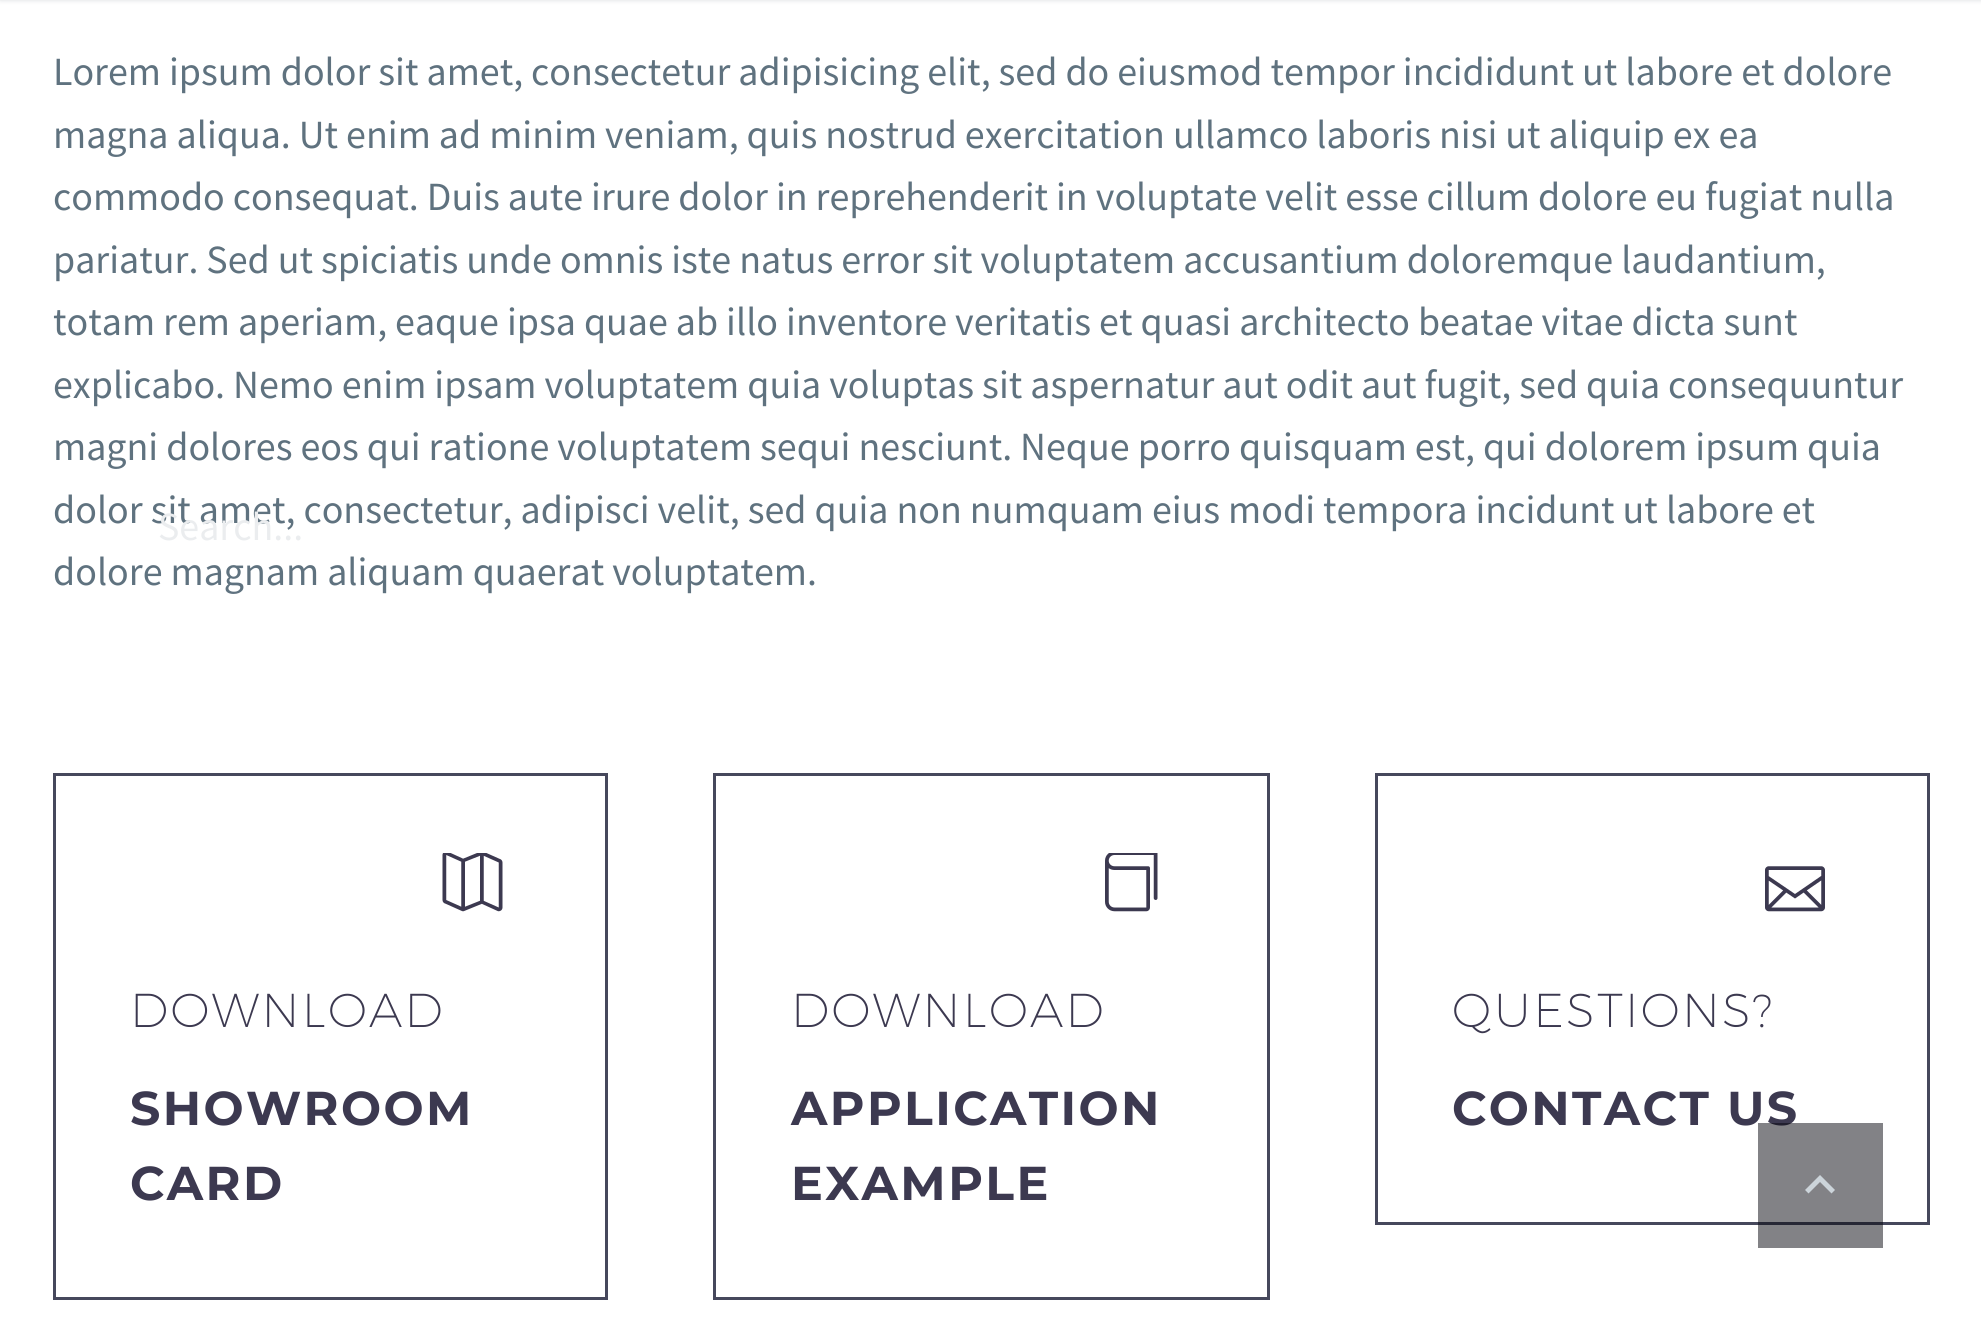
#include <cairo.h>
#include <math.h>
#include <stddef.h>


static void set_color(cairo_t *cr, unsigned color) {
    cairo_set_source_rgb(cr, (color >> 16) / 255.0, (color >> 8 & 255) / 255.0, (color & 255) / 255.0);
}

static void draw_text(cairo_t *cr, double x, double y, const char *s, const char *family, double size, int italic, int bold, unsigned color) {
    cairo_select_font_face(cr, family, italic ? CAIRO_FONT_SLANT_ITALIC : CAIRO_FONT_SLANT_NORMAL,
        bold ? CAIRO_FONT_WEIGHT_BOLD : CAIRO_FONT_WEIGHT_NORMAL);
    cairo_set_font_size(cr, size);
    set_color(cr, color);
    cairo_move_to(cr, x, y);
    cairo_show_text(cr, s);
}

static void draw_spaced(cairo_t *cr, double x, double y, const char *s, double letter, double word) {
    cairo_move_to(cr, x, y);
    while (*s) {
        char ch[5] = {0};
        int n = 0;
        do ch[n++] = *s++; while ((*s & 0xC0) == 0x80);
        cairo_show_text(cr, ch);
        cairo_rel_move_to(cr, letter + word * (*ch == ' '), 0);
    }
}

static void rounded_rect(cairo_t *cr, double x, double y, double w, double h, double r) {
    cairo_new_sub_path(cr);
    cairo_arc(cr, x + w - r, y + h - r, r, 0, M_PI / 2);
    cairo_arc(cr, x + r, y + h - r, r, M_PI / 2, M_PI);
    cairo_arc(cr, x + r, y + r, r, M_PI, 1.5 * M_PI);
    cairo_arc(cr, x + w - r, y + r, r, 1.5 * M_PI, 2 * M_PI);
    cairo_close_path(cr);
}

static void draw_shadow(cairo_t *cr, double x, double y, double w, double h, double r, double blur, double alpha) {
    cairo_push_group_with_content(cr, CAIRO_CONTENT_ALPHA);
    cairo_set_operator(cr, CAIRO_OPERATOR_SOURCE);
    for (int i = 15; i >= -15 && fmin(w, h) + blur * i / 3 > 0; i -= 2) {
        double e = blur * i / 6;
        cairo_set_source_rgba(cr, 0, 0, 0, alpha * erfc((i - 1) / 8.5) / 2);
        rounded_rect(cr, x - e, y - e, w + 2 * e, h + 2 * e, fmax(0, fmin(r + e + blur * .6, fmin(w, h) / 2 + e)));
        cairo_fill(cr);
    }
    cairo_pattern_t *soft = cairo_pop_group(cr);
    cairo_mask(cr, soft);
    cairo_pattern_destroy(soft);
}

static void draw_image(cairo_t *cr, const char *path, double x, double y, double w, double h) {
    cairo_surface_t *image = cairo_image_surface_create_from_png(path);
    cairo_save(cr);
    cairo_set_source_surface(cr, image, x, y);
    cairo_rectangle(cr, x, y, w, h);
    cairo_fill(cr);
    cairo_restore(cr);
    cairo_surface_destroy(image);
}

int main(void) {
    cairo_surface_t *surface = cairo_image_surface_create(CAIRO_FORMAT_RGB24, 1981, 1335);
    cairo_t *cr = cairo_create(surface);
    cairo_font_options_t *options = cairo_font_options_create();
    cairo_font_options_set_hint_metrics(options, CAIRO_HINT_METRICS_OFF);
    cairo_font_options_set_hint_style(options, CAIRO_HINT_STYLE_NONE);
    cairo_set_font_options(cr, options);
    cairo_set_miter_limit(cr, 4);
    set_color(cr, 0xFFFFFF);
    cairo_paint(cr);
    draw_text(cr, 53, 85, "Lorem ipsum dolor sit amet, consectetur adipisicing elit, sed do eiusmod tempor incididunt ut labore et dolore", "Source Sans Pro", 40, 0, 0, 0x5F727F);
    draw_text(cr, 53, 148, "magna aliqua. Ut enim ad minim veniam, quis nostrud exercitation ullamco laboris nisi ut aliquip ex ea", "Source Sans Pro", 40, 0, 0, 0x5F727F);
    draw_text(cr, 53, 210, "commodo consequat. Duis aute irure dolor in reprehenderit in voluptate velit esse cillum dolore eu fugiat nulla", "Source Sans Pro", 40, 0, 0, 0x5F727F);
    draw_text(cr, 53, 273, "pariatur. Sed ut spiciatis unde omnis iste natus error sit voluptatem accusantium doloremque laudantium,", "Source Sans Pro", 40, 0, 0, 0x5F727F);
    draw_text(cr, 53, 335, "totam rem aperiam, eaque ipsa quae ab illo inventore veritatis et quasi architecto beatae vitae dicta sunt", "Source Sans Pro", 40, 0, 0, 0x5F727F);
    draw_text(cr, 53, 398, "explicabo. Nemo enim ipsam voluptatem quia voluptas sit aspernatur aut odit aut fugit, sed quia consequuntur", "Source Sans Pro", 40, 0, 0, 0x5F727F);
    draw_text(cr, 53, 460, "magni dolores eos qui ratione voluptatem sequi nesciunt. Neque porro quisquam est, qui dolorem ipsum quia", "Source Sans Pro", 40, 0, 0, 0x5F727F);
    draw_text(cr, 53, 523, "dolor sit amet, consectetur, adipisci velit, sed quia non numquam eius modi tempora incidunt ut labore et", "Source Sans Pro", 40, 0, 0, 0x5F727F);
    draw_text(cr, 53, 585, "dolore magnam aliquam quaerat voluptatem.", "Source Sans Pro", 40, 0, 0, 0x5F727F);
    cairo_rectangle(cr, 54.5, 774.5, 552, 524);
    set_color(cr, 0x46485C);
    cairo_set_line_width(cr, 3);
    cairo_stroke(cr);
    draw_image(cr, "assets/img1.png", 442, 853, 31, 59);
    draw_image(cr, "assets/img2.png", 473, 853, 30, 59);
    cairo_select_font_face(cr, "Montserrat ExtraLight", CAIRO_FONT_SLANT_NORMAL, CAIRO_FONT_WEIGHT_NORMAL);
    cairo_set_font_size(cr, 47.5);
    set_color(cr, 0x3C3950);
    draw_spaced(cr, 130, 1027, "DOWNLOAD", 2.4, 0);
    cairo_select_font_face(cr, "Montserrat", CAIRO_FONT_SLANT_NORMAL, CAIRO_FONT_WEIGHT_BOLD);
    draw_spaced(cr, 130, 1125, "SHOWROOM", 2.4, 0);
    draw_spaced(cr, 130, 1200, "CARD", 2.4, 0);
    cairo_rectangle(cr, 714.5, 774.5, 554, 524);
    set_color(cr, 0x46485C);
    cairo_stroke(cr);
    draw_image(cr, "assets/img3.png", 1105, 853, 30, 59);
    draw_image(cr, "assets/img4.png", 1135, 853, 23, 59);
    cairo_select_font_face(cr, "Montserrat ExtraLight", CAIRO_FONT_SLANT_NORMAL, CAIRO_FONT_WEIGHT_NORMAL);
    set_color(cr, 0x3C3950);
    draw_spaced(cr, 791, 1027, "DOWNLOAD", 2.4, 0);
    cairo_select_font_face(cr, "Montserrat", CAIRO_FONT_SLANT_NORMAL, CAIRO_FONT_WEIGHT_BOLD);
    draw_spaced(cr, 791, 1125, "APPLICATION", 2.4, 0);
    draw_spaced(cr, 791, 1200, "EXAMPLE", 2.4, 0);
    cairo_rectangle(cr, 1376.5, 774.5, 552, 449);
    set_color(cr, 0x46485C);
    cairo_stroke(cr);
    draw_image(cr, "assets/img5.png", 1765, 866, 30, 46);
    draw_image(cr, "assets/img6.png", 1795, 866, 30, 46);
    cairo_select_font_face(cr, "Montserrat ExtraLight", CAIRO_FONT_SLANT_NORMAL, CAIRO_FONT_WEIGHT_NORMAL);
    set_color(cr, 0x3C3950);
    draw_spaced(cr, 1452, 1027, "QUESTIONS?", 2.4, 0);
    cairo_select_font_face(cr, "Montserrat", CAIRO_FONT_SLANT_NORMAL, CAIRO_FONT_WEIGHT_BOLD);
    draw_spaced(cr, 1452, 1125, "CONTACT US", 2.4, 0);
    set_color(cr, 0x384554);
    draw_shadow(cr, 0, -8, 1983, 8, 0, 2.5, 0.2);
    draw_text(cr, 158, 540, "Search...", "Source Sans Pro", 40, 0, 0, 0xEBEDEF);
    cairo_set_source_rgba(cr, 0.024, 0.024, 0.059, 0.5);
    cairo_rectangle(cr, 1758, 1123, 125, 125);
    cairo_fill(cr);
    set_color(cr, 0xCCD4DA);
    cairo_new_path(cr);
    cairo_move_to(cr, 1808.5, 1193.5);
    cairo_line_to(cr, 1820, 1182);
    cairo_line_to(cr, 1831.5, 1193.5);
    cairo_line_to(cr, 1835, 1190);
    cairo_line_to(cr, 1820, 1175);
    cairo_line_to(cr, 1805, 1190);
    cairo_close_path(cr);
    cairo_fill(cr);
    cairo_surface_write_to_png(surface, "output.png");
    cairo_font_options_destroy(options);
    cairo_destroy(cr);
    cairo_surface_destroy(surface);
    return 0;
}
